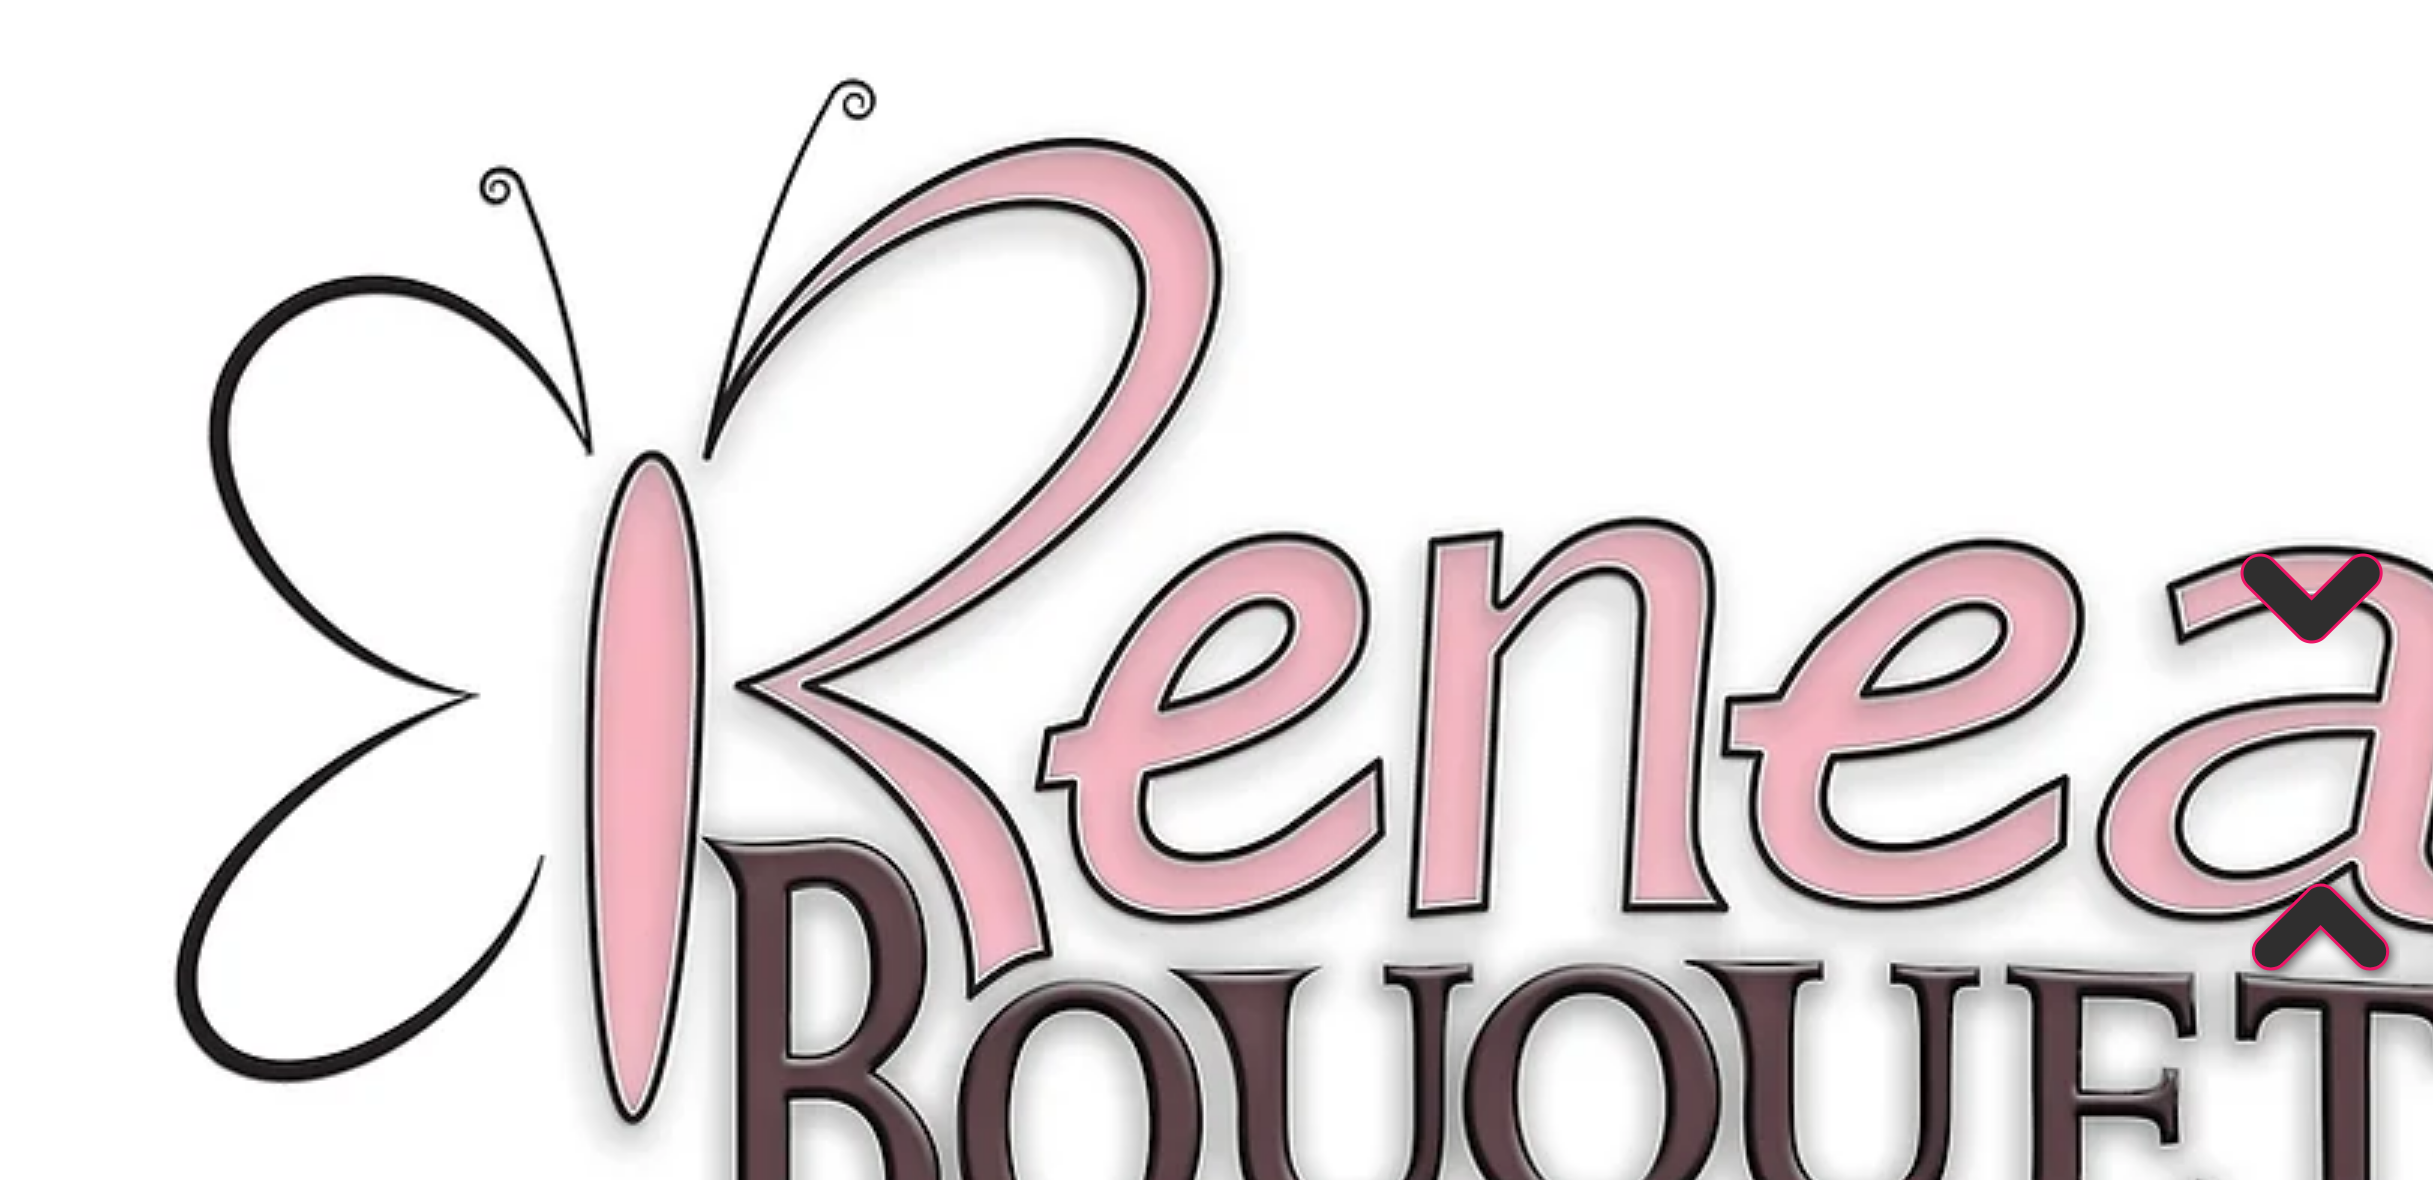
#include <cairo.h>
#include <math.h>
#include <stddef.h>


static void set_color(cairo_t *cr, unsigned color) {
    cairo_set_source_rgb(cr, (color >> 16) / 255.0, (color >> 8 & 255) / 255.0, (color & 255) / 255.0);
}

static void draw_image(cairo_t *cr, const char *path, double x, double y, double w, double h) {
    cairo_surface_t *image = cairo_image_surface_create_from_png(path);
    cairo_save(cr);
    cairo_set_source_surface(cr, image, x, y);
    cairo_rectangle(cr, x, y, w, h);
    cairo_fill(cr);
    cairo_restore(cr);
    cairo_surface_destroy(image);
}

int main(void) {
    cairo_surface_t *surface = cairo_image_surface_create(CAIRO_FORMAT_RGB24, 2433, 1180);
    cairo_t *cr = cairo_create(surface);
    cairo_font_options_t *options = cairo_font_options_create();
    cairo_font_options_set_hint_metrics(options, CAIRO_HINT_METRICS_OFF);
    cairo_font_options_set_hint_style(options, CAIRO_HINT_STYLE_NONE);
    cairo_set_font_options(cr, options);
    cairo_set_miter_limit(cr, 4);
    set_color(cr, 0xFFFFFF);
    cairo_paint(cr);
    draw_image(cr, "assets/img1.png", 167, 72, 2266, 1108);
    draw_image(cr, "assets/img2.png", 2240, 553, 143, 91);
    draw_image(cr, "assets/img3.png", 2250, 882, 150, 96);
    cairo_surface_write_to_png(surface, "output.png");
    cairo_font_options_destroy(options);
    cairo_destroy(cr);
    cairo_surface_destroy(surface);
    return 0;
}
